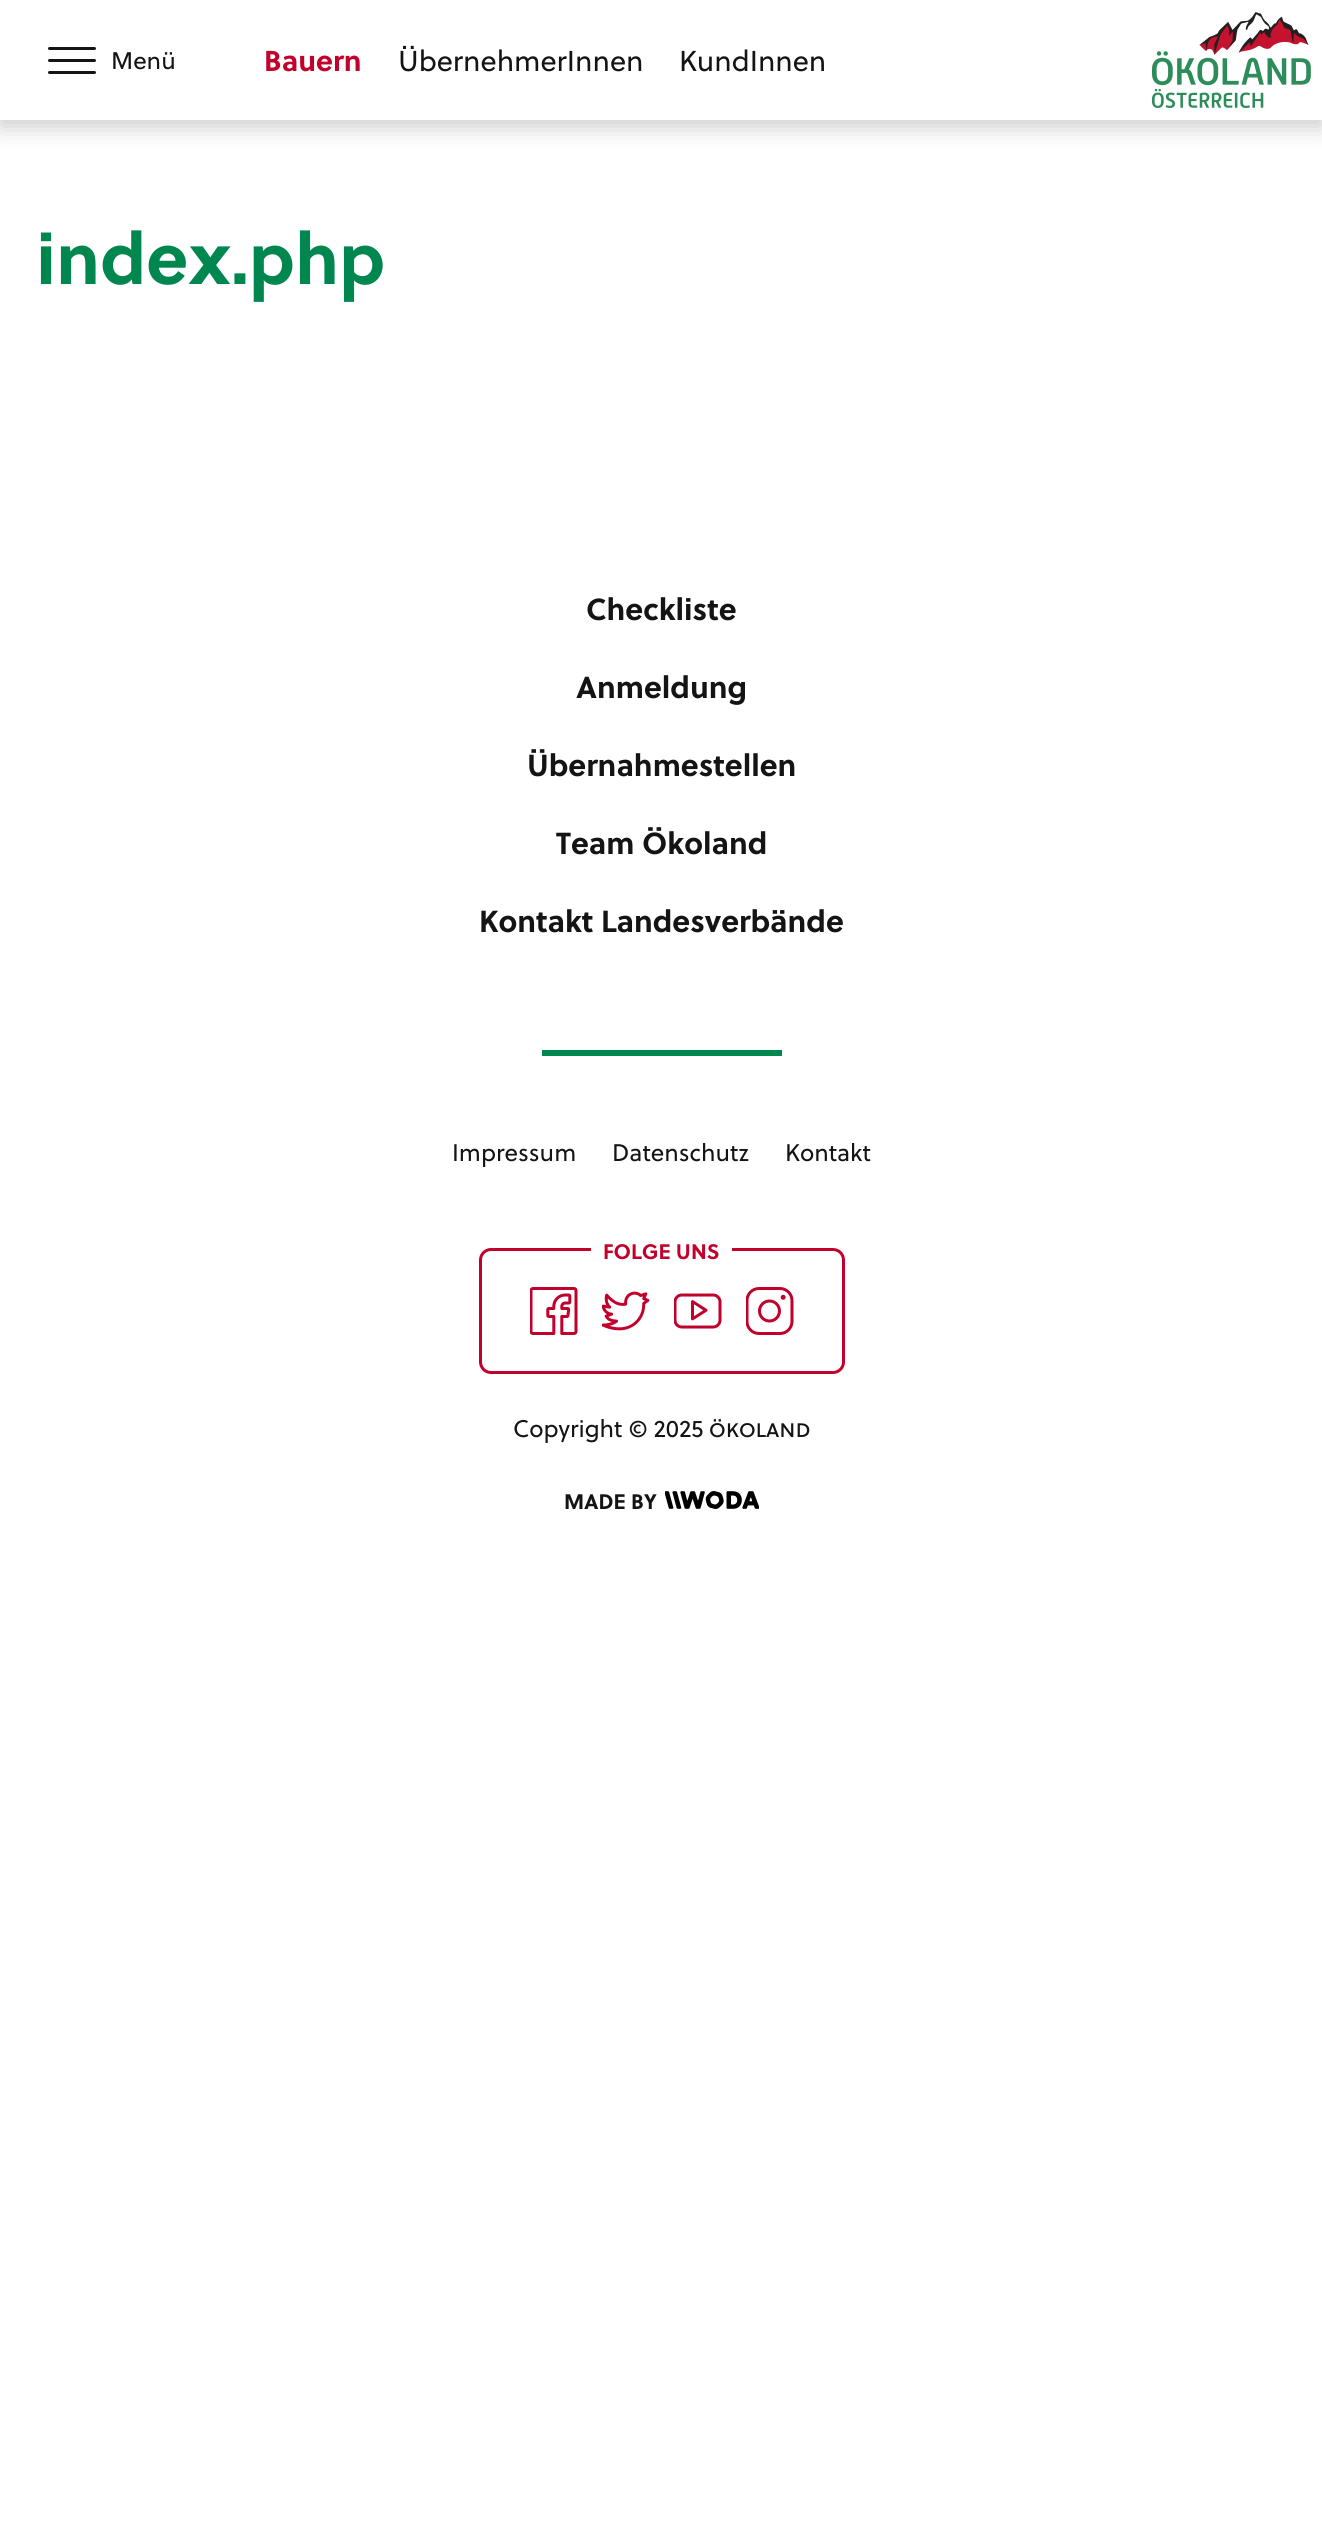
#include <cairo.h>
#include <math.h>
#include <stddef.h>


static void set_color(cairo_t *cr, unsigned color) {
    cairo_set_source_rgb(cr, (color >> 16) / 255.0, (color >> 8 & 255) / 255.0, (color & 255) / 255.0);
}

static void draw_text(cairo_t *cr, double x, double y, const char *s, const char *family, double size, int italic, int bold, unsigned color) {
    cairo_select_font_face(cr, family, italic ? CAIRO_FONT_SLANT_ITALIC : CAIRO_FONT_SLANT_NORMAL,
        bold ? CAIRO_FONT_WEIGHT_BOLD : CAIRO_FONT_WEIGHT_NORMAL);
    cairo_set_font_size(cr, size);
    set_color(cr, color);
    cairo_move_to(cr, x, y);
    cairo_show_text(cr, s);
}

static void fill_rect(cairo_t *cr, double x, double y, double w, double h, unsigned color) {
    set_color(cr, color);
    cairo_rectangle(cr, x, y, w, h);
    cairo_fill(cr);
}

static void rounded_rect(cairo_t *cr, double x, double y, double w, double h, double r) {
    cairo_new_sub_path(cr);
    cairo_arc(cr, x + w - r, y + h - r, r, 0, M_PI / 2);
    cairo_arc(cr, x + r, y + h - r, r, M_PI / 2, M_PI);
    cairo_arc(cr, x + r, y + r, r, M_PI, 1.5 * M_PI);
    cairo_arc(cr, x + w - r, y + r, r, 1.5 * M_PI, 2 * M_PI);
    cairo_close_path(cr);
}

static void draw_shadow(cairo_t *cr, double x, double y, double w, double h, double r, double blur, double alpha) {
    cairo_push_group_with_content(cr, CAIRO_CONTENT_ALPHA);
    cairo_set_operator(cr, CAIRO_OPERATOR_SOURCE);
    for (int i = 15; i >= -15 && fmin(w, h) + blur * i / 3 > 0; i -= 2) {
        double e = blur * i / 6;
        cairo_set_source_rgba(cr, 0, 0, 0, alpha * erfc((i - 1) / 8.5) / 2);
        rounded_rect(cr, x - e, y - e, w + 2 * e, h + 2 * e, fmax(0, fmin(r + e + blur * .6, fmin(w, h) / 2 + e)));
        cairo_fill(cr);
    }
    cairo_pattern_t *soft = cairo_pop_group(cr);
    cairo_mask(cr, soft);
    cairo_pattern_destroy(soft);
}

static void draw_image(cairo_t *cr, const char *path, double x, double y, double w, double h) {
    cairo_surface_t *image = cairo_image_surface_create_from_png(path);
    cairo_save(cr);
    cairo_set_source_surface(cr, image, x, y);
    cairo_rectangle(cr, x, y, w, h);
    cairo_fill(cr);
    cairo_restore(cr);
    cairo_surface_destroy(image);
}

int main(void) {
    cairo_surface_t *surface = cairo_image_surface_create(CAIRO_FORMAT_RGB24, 1322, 2548);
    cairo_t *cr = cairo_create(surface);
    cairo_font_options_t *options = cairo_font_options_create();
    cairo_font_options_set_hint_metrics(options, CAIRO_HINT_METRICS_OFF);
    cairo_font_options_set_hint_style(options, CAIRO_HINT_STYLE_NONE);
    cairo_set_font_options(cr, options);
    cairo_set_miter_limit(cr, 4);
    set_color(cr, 0xFFFFFF);
    cairo_paint(cr);
    set_color(cr, 0x141414);
    draw_shadow(cr, 0, 6, 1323, 120, 0, 12, 0.24);
    fill_rect(cr, 0, 0, 1322, 120, 0xFFFFFF);
    set_color(cr, 0x141414);
    rounded_rect(cr, 48, 59, 48, 3, 1.5);
    cairo_fill(cr);
    rounded_rect(cr, 48, 47, 48, 3, 1.5);
    cairo_fill(cr);
    rounded_rect(cr, 48, 71, 48, 3, 1.5);
    cairo_fill(cr);
    draw_text(cr, 111, 69, "Menü", "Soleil", 24, 0, 0, 0x141414);
    draw_text(cr, 264, 71, "Bauern", "Soleil", 28.75, 0, 1, 0xC1002C);
    draw_text(cr, 398, 71, "ÜbernehmerInnen", "Soleil", 28.75, 0, 0, 0x141414);
    draw_text(cr, 679, 71, "KundInnen", "Soleil", 28.75, 0, 0, 0x141414);
    draw_image(cr, "assets/img1.png", 1152, 12, 159, 96);
    draw_text(cr, 36, 284, "index.php", "Soleil", 71.5, 0, 1, 0x008750);
    draw_text(cr, 586, 620, "Checkliste", "Soleil", 30.4, 0, 1, 0x141414);
    draw_text(cr, 576, 698, "Anmeldung", "Soleil", 30.4, 0, 1, 0x141414);
    draw_text(cr, 527, 776, "Übernahmestellen", "Soleil", 30.4, 0, 1, 0x141414);
    draw_text(cr, 556, 854, "Team Ökoland", "Soleil", 30.4, 0, 1, 0x141414);
    draw_text(cr, 479, 932, "Kontakt Landesverbände", "Soleil", 30.4, 0, 1, 0x141414);
    fill_rect(cr, 542, 1050, 240, 6, 0x008750);
    draw_text(cr, 452, 1161, "Impressum", "Soleil", 24, 0, 0, 0x141414);
    draw_text(cr, 612, 1161, "Datenschutz", "Soleil", 24, 0, 0, 0x141414);
    draw_text(cr, 785, 1161, "Kontakt", "Soleil", 24, 0, 0, 0x141414);
    rounded_rect(cr, 480.5, 1249.5, 363, 123, 10.5);
    set_color(cr, 0xC1002C);
    cairo_set_line_width(cr, 3);
    cairo_stroke(cr);
    fill_rect(cr, 591, 1248, 141, 3, 0xFFFFFF);
    draw_text(cr, 603, 1259, "FOLGE UNS", "Soleil", 21, 0, 1, 0xC1002C);
    draw_image(cr, "assets/img2.png", 530, 1287, 48, 48);
    draw_image(cr, "assets/img3.png", 602, 1291, 48, 40);
    draw_image(cr, "assets/img4.png", 674, 1293, 48, 36);
    draw_image(cr, "assets/img5.png", 746, 1287, 48, 48);
    draw_text(cr, 513, 1437, "Copyright © 2025", "Soleil", 24, 0, 0, 0x141414);
    draw_text(cr, 709, 1437, "ökoland", "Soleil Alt", 24, 0, 0, 0x141414);
    draw_text(cr, 564, 1509, "MADE BY", "Soleil", 21, 0, 1, 0x141414);
    draw_image(cr, "assets/img6.png", 665, 1491, 94, 18);
    cairo_surface_write_to_png(surface, "output.png");
    cairo_font_options_destroy(options);
    cairo_destroy(cr);
    cairo_surface_destroy(surface);
    return 0;
}
